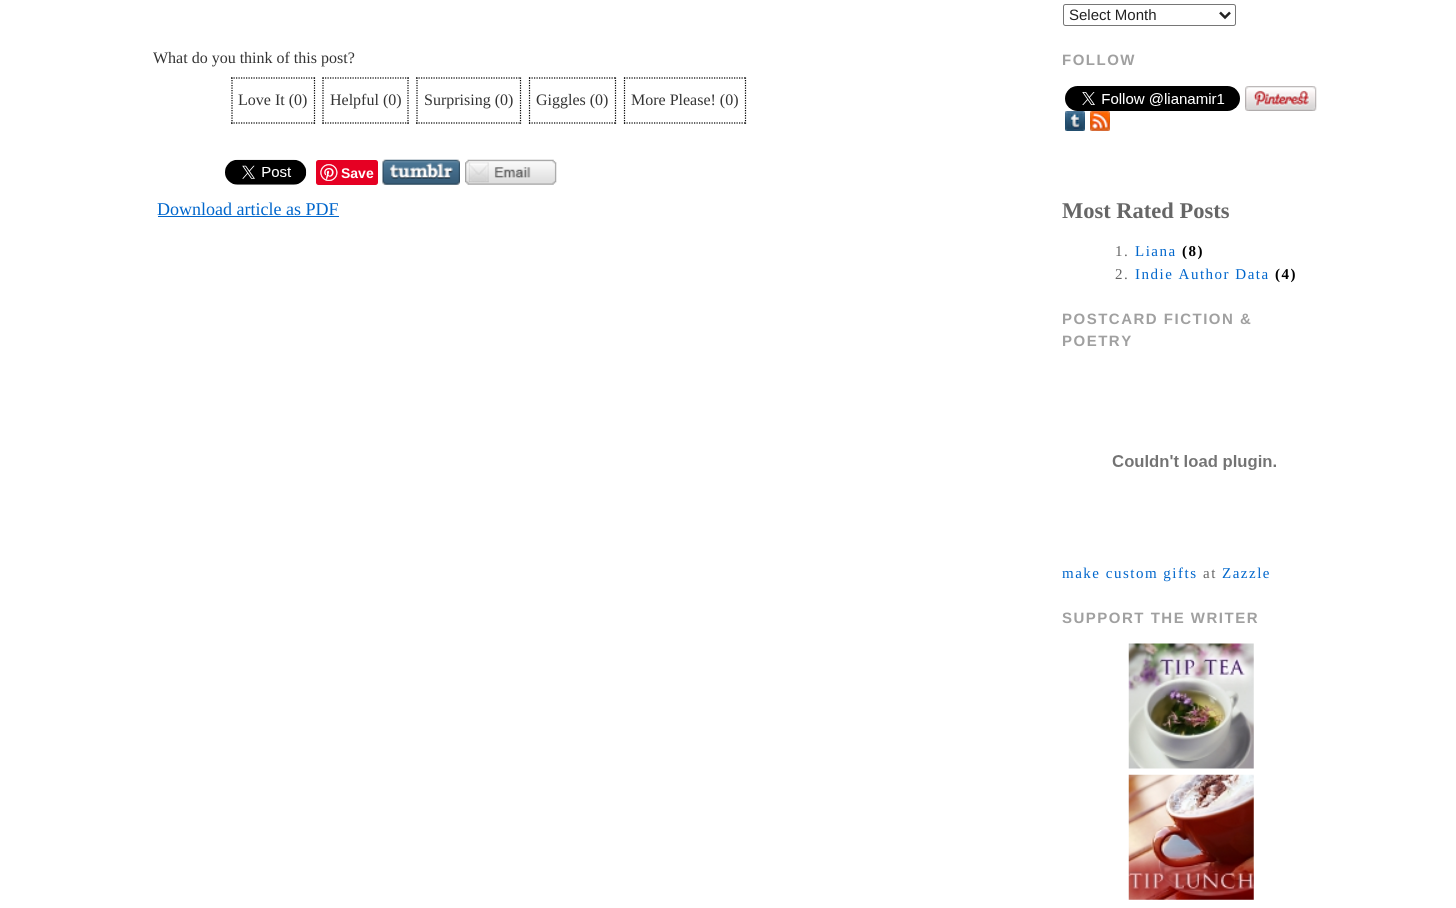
#include <cairo.h>
#include <math.h>
#include <stddef.h>


static void set_color(cairo_t *cr, unsigned color) {
    cairo_set_source_rgb(cr, (color >> 16) / 255.0, (color >> 8 & 255) / 255.0, (color & 255) / 255.0);
}

static void draw_text(cairo_t *cr, double x, double y, const char *s, const char *family, double size, int italic, int bold, unsigned color) {
    cairo_select_font_face(cr, family, italic ? CAIRO_FONT_SLANT_ITALIC : CAIRO_FONT_SLANT_NORMAL,
        bold ? CAIRO_FONT_WEIGHT_BOLD : CAIRO_FONT_WEIGHT_NORMAL);
    cairo_set_font_size(cr, size);
    set_color(cr, color);
    cairo_move_to(cr, x, y);
    cairo_show_text(cr, s);
}

static void draw_spaced(cairo_t *cr, double x, double y, const char *s, double letter, double word) {
    cairo_move_to(cr, x, y);
    while (*s) {
        char ch[5] = {0};
        int n = 0;
        do ch[n++] = *s++; while ((*s & 0xC0) == 0x80);
        cairo_show_text(cr, ch);
        cairo_rel_move_to(cr, letter + word * (*ch == ' '), 0);
    }
}

static void fill_rect(cairo_t *cr, double x, double y, double w, double h, unsigned color) {
    set_color(cr, color);
    cairo_rectangle(cr, x, y, w, h);
    cairo_fill(cr);
}

static void rounded_rect(cairo_t *cr, double x, double y, double w, double h, double r) {
    cairo_new_sub_path(cr);
    cairo_arc(cr, x + w - r, y + h - r, r, 0, M_PI / 2);
    cairo_arc(cr, x + r, y + h - r, r, M_PI / 2, M_PI);
    cairo_arc(cr, x + r, y + r, r, M_PI, 1.5 * M_PI);
    cairo_arc(cr, x + w - r, y + r, r, 1.5 * M_PI, 2 * M_PI);
    cairo_close_path(cr);
}

static void draw_image(cairo_t *cr, const char *path, double x, double y, double w, double h) {
    cairo_surface_t *image = cairo_image_surface_create_from_png(path);
    cairo_save(cr);
    cairo_set_source_surface(cr, image, x, y);
    cairo_rectangle(cr, x, y, w, h);
    cairo_fill(cr);
    cairo_restore(cr);
    cairo_surface_destroy(image);
}

int main(void) {
    cairo_surface_t *surface = cairo_image_surface_create(CAIRO_FORMAT_RGB24, 1456, 908);
    cairo_t *cr = cairo_create(surface);
    cairo_font_options_t *options = cairo_font_options_create();
    cairo_font_options_set_hint_metrics(options, CAIRO_HINT_METRICS_OFF);
    cairo_font_options_set_hint_style(options, CAIRO_HINT_STYLE_NONE);
    cairo_set_font_options(cr, options);
    cairo_set_miter_limit(cr, 4);
    set_color(cr, 0xFFFFFF);
    cairo_paint(cr);
    draw_text(cr, 153, 63, "What do you think of this post?", "Liberation Serif", 16, 0, 0, 0x333333);
    cairo_new_path(cr);
    cairo_move_to(cr, 231, 78);
    cairo_line_to(cr, 315, 78);
    set_color(cr, 0x000000);
    cairo_set_line_width(cr, 1.2);
    cairo_set_dash(cr, (double[]){1.25, 1.25}, 2, 0);
    cairo_stroke(cr);
    cairo_new_path(cr);
    cairo_move_to(cr, 314.5, 77.5);
    cairo_line_to(cr, 314.5, 124);
    cairo_stroke(cr);
    cairo_new_path(cr);
    cairo_move_to(cr, 231, 123);
    cairo_line_to(cr, 315, 123);
    cairo_stroke(cr);
    cairo_new_path(cr);
    cairo_move_to(cr, 232, 77.5);
    cairo_line_to(cr, 232, 124);
    cairo_stroke(cr);
    draw_text(cr, 238, 105, "Love It (0)", "Liberation Serif", 16, 0, 0, 0x333333);
    cairo_new_path(cr);
    cairo_move_to(cr, 322.5, 78);
    cairo_line_to(cr, 409, 78);
    set_color(cr, 0x000000);
    cairo_stroke(cr);
    cairo_new_path(cr);
    cairo_move_to(cr, 408, 77.5);
    cairo_line_to(cr, 408, 124);
    cairo_stroke(cr);
    cairo_new_path(cr);
    cairo_move_to(cr, 322.5, 123);
    cairo_line_to(cr, 409, 123);
    cairo_stroke(cr);
    cairo_new_path(cr);
    cairo_move_to(cr, 323, 77.5);
    cairo_line_to(cr, 323, 124);
    cairo_stroke(cr);
    draw_text(cr, 330, 105, "Helpful (0)", "Liberation Serif", 16, 0, 0, 0x333333);
    cairo_new_path(cr);
    cairo_move_to(cr, 416, 78);
    cairo_line_to(cr, 521, 78);
    set_color(cr, 0x000000);
    cairo_stroke(cr);
    cairo_new_path(cr);
    cairo_move_to(cr, 520.5, 77.5);
    cairo_line_to(cr, 520.5, 124);
    cairo_stroke(cr);
    cairo_new_path(cr);
    cairo_move_to(cr, 416, 123);
    cairo_line_to(cr, 521, 123);
    cairo_stroke(cr);
    cairo_new_path(cr);
    cairo_move_to(cr, 417, 77.5);
    cairo_line_to(cr, 417, 124);
    cairo_stroke(cr);
    draw_text(cr, 424, 105, "Surprising (0)", "Liberation Serif", 16, 0, 0, 0x333333);
    cairo_new_path(cr);
    cairo_move_to(cr, 529, 78);
    cairo_line_to(cr, 616, 78);
    set_color(cr, 0x000000);
    cairo_stroke(cr);
    cairo_new_path(cr);
    cairo_move_to(cr, 615.5, 77.5);
    cairo_line_to(cr, 615.5, 124);
    cairo_stroke(cr);
    cairo_new_path(cr);
    cairo_move_to(cr, 529, 123);
    cairo_line_to(cr, 616, 123);
    cairo_stroke(cr);
    cairo_new_path(cr);
    cairo_move_to(cr, 529.5, 77.5);
    cairo_line_to(cr, 529.5, 124);
    cairo_stroke(cr);
    draw_text(cr, 536, 105, "Giggles (0)", "Liberation Serif", 16, 0, 0, 0x333333);
    cairo_new_path(cr);
    cairo_move_to(cr, 624, 78);
    cairo_line_to(cr, 746, 78);
    set_color(cr, 0x000000);
    cairo_stroke(cr);
    cairo_new_path(cr);
    cairo_move_to(cr, 745.5, 77.5);
    cairo_line_to(cr, 745.5, 124);
    cairo_stroke(cr);
    cairo_new_path(cr);
    cairo_move_to(cr, 624, 123);
    cairo_line_to(cr, 746, 123);
    cairo_stroke(cr);
    cairo_new_path(cr);
    cairo_move_to(cr, 624.5, 77.5);
    cairo_line_to(cr, 624.5, 124);
    cairo_stroke(cr);
    draw_text(cr, 631, 105, "More Please! (0)", "Liberation Serif", 16, 0, 0, 0x333333);
    draw_image(cr, "assets/img1.png", 225, 159, 82, 26);
    set_color(cr, 0xE60023);
    rounded_rect(cr, 316, 160, 62, 25, 2.5);
    cairo_fill(cr);
    draw_image(cr, "assets/img2.png", 320, 164, 18, 17);
    draw_text(cr, 341, 178, "Save", "Liberation Sans", 14, 0, 1, 0xFFFFFF);
    draw_image(cr, "assets/img3.png", 382, 159, 78, 26);
    draw_image(cr, "assets/img4.png", 465, 159, 92, 26);
    draw_text(cr, 157, 215, "Download article as PDF", "Liberation Serif", 18, 0, 0, 0x0066CC);
    fill_rect(cr, 158, 216, 181, 1, 0x0066CC);
    rounded_rect(cr, 1063.5, 4.5, 172, 21, 2);
    set_color(cr, 0x767676);
    cairo_set_line_width(cr, 1);
    cairo_set_dash(cr, NULL, 0, 0);
    cairo_stroke(cr);
    cairo_new_path(cr);
    cairo_move_to(cr, 1220, 12.5);
    cairo_line_to(cr, 1225, 17.5);
    cairo_line_to(cr, 1230, 12.5);
    set_color(cr, 0x222222);
    cairo_set_line_width(cr, 2.5);
    cairo_stroke(cr);
    draw_text(cr, 1069, 20, "Select Month", "Liberation Sans", 15, 0, 0, 0x222222);
    cairo_select_font_face(cr, "Liberation Sans", CAIRO_FONT_SLANT_NORMAL, CAIRO_FONT_WEIGHT_BOLD);
    set_color(cr, 0xA0A0A0);
    draw_spaced(cr, 1062, 65, "FOLLOW", 1.5, 0);
    draw_image(cr, "assets/img5.png", 1065, 86, 175, 25);
    draw_image(cr, "assets/img6.png", 1245, 86, 72, 25);
    draw_image(cr, "assets/img7.png", 1065, 111, 20, 20);
    draw_image(cr, "assets/img8.png", 1090, 111, 20, 20);
    draw_text(cr, 1062, 218, "Most Rated Posts", "Liberation Serif", 22.5, 0, 1, 0x666666);
    cairo_select_font_face(cr, "Liberation Serif", CAIRO_FONT_SLANT_NORMAL, CAIRO_FONT_WEIGHT_NORMAL);
    cairo_set_font_size(cr, 15);
    draw_spaced(cr, 1115, 256, "1.", 1.5, 0);
    set_color(cr, 0x0066CC);
    draw_spaced(cr, 1135, 256, "Liana", 1.5, 0);
    cairo_select_font_face(cr, "Liberation Serif", CAIRO_FONT_SLANT_NORMAL, CAIRO_FONT_WEIGHT_BOLD);
    set_color(cr, 0x000000);
    draw_spaced(cr, 1182, 256, "(8)", 1.5, 0);
    cairo_select_font_face(cr, "Liberation Serif", CAIRO_FONT_SLANT_NORMAL, CAIRO_FONT_WEIGHT_NORMAL);
    set_color(cr, 0x666666);
    draw_spaced(cr, 1115, 279, "2.", 1.5, 0);
    set_color(cr, 0x0066CC);
    draw_spaced(cr, 1135, 279, "Indie Author Data", 1.5, 0);
    cairo_select_font_face(cr, "Liberation Serif", CAIRO_FONT_SLANT_NORMAL, CAIRO_FONT_WEIGHT_BOLD);
    set_color(cr, 0x000000);
    draw_spaced(cr, 1275, 279, "(4)", 1.5, 0);
    cairo_select_font_face(cr, "Liberation Sans", CAIRO_FONT_SLANT_NORMAL, CAIRO_FONT_WEIGHT_BOLD);
    set_color(cr, 0xA0A0A0);
    draw_spaced(cr, 1062, 324, "POSTCARD FICTION &", 1.5, 0);
    draw_spaced(cr, 1062, 346, "POETRY", 1.5, 0);
    draw_image(cr, "assets/img9.png", 1112, 455, 164, 15);
    cairo_select_font_face(cr, "Liberation Serif", CAIRO_FONT_SLANT_NORMAL, CAIRO_FONT_WEIGHT_NORMAL);
    set_color(cr, 0x0066CC);
    draw_spaced(cr, 1062, 578, "make custom gifts", 1.5, 0);
    set_color(cr, 0x666666);
    draw_spaced(cr, 1203, 578, "at", 1.5, 0);
    set_color(cr, 0x0066CC);
    draw_spaced(cr, 1222, 578, "Zazzle", 1.5, 0);
    cairo_select_font_face(cr, "Liberation Sans", CAIRO_FONT_SLANT_NORMAL, CAIRO_FONT_WEIGHT_BOLD);
    set_color(cr, 0xA0A0A0);
    draw_spaced(cr, 1062, 623, "SUPPORT THE WRITER", 1.5, 0);
    draw_image(cr, "assets/img10.png", 1128, 643, 126, 126);
    draw_image(cr, "assets/img11.png", 1128, 774, 126, 126);
    cairo_surface_write_to_png(surface, "output.png");
    cairo_font_options_destroy(options);
    cairo_destroy(cr);
    cairo_surface_destroy(surface);
    return 0;
}
